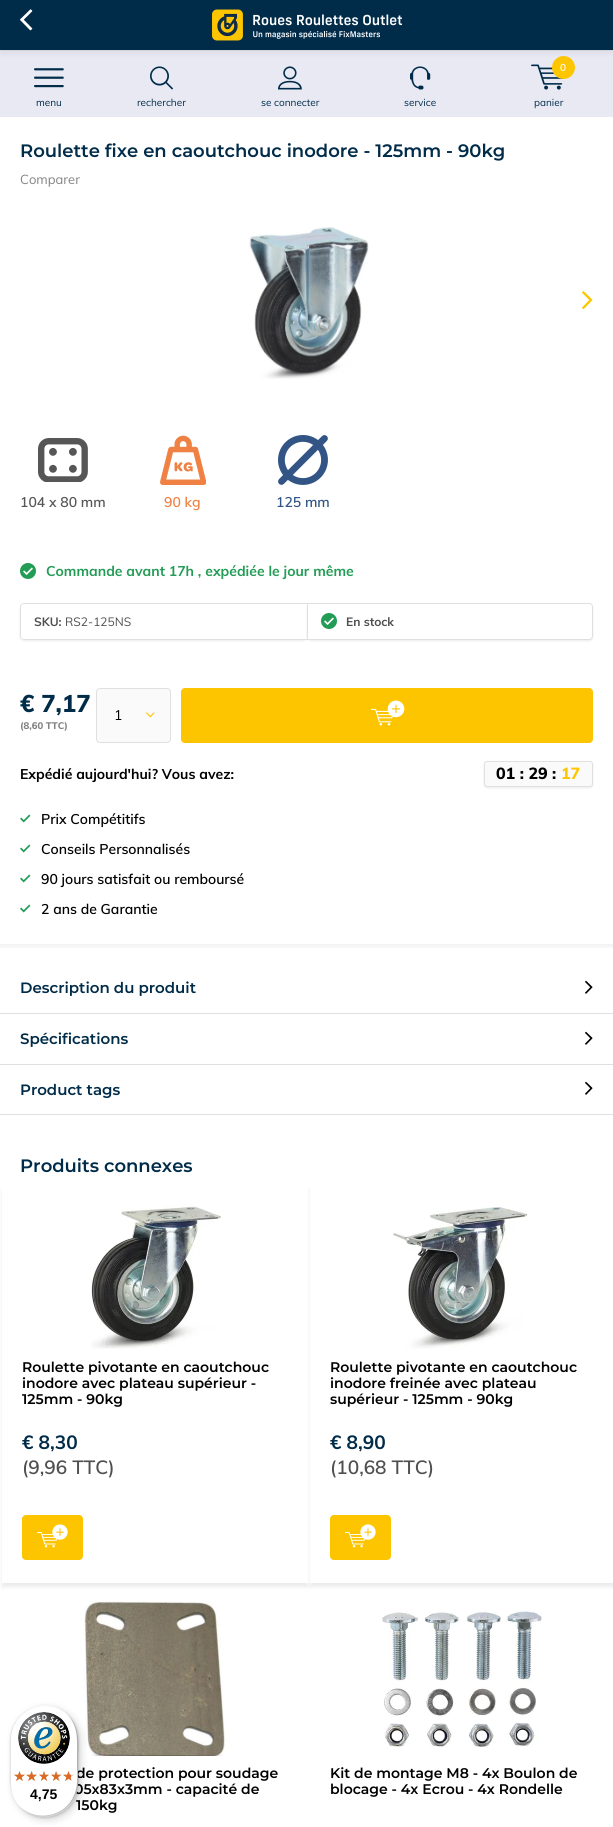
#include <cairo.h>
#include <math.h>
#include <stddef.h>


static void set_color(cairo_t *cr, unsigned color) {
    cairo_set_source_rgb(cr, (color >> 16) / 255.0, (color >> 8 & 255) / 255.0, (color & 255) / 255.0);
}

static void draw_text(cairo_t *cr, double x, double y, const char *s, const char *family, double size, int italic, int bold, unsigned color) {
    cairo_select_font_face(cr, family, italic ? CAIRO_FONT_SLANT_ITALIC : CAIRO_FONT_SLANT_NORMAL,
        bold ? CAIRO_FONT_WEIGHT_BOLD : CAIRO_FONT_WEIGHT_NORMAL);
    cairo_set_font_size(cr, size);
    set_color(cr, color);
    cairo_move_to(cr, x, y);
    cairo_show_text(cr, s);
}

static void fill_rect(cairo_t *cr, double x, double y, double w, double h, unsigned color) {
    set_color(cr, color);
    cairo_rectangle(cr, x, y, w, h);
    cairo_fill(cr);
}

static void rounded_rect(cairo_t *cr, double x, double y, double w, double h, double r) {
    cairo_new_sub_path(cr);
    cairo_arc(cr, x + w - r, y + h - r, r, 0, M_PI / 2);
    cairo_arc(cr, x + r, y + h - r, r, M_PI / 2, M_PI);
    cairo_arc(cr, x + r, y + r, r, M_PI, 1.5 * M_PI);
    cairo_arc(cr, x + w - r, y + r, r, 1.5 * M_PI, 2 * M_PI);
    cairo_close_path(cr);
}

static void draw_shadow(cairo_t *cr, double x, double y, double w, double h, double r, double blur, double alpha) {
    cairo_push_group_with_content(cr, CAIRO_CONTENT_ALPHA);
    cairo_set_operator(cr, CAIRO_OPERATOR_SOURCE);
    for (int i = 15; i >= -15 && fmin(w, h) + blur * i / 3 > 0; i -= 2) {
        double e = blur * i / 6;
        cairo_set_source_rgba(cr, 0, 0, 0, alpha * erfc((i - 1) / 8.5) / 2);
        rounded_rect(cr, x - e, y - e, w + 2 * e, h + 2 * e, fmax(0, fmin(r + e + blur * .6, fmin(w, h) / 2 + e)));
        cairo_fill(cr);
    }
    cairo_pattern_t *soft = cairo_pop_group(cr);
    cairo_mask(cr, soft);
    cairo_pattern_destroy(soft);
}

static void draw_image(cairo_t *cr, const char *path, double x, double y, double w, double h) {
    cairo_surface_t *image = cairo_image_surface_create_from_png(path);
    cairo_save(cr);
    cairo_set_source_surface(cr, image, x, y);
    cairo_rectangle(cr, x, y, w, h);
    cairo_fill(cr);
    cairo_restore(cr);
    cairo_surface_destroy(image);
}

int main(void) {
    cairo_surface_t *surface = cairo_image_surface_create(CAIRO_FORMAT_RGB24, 613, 1827);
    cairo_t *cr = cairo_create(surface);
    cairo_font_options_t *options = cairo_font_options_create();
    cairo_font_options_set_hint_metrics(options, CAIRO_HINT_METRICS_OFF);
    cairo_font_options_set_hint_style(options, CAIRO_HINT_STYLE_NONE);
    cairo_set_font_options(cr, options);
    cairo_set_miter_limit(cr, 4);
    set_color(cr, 0xFFFFFF);
    cairo_paint(cr);
    fill_rect(cr, 0, 50, 613, 1, 0xE0E0E0);
    fill_rect(cr, 1, 51, 95, 65, 0xE8E9F3);
    fill_rect(cr, 0, 116, 613, 1, 0xE8E9F3);
    fill_rect(cr, 0, 51, 1, 66, 0xE8E9F3);
    fill_rect(cr, 97, 51, 128, 65, 0xE8E9F3);
    fill_rect(cr, 96, 51, 1, 66, 0xE8E9F3);
    fill_rect(cr, 226, 51, 129, 65, 0xE8E9F3);
    fill_rect(cr, 225, 51, 1, 66, 0xE8E9F3);
    fill_rect(cr, 356, 51, 128, 65, 0xE8E9F3);
    fill_rect(cr, 355, 51, 1, 66, 0xE8E9F3);
    fill_rect(cr, 485, 51, 128, 65, 0xE8E9F3);
    fill_rect(cr, 484, 51, 1, 66, 0xE8E9F3);
    draw_image(cr, "assets/img7.png", 531, 64, 33, 26);
    set_color(cr, 0xFDC600);
    cairo_arc(cr, 563.5, 67.5, 11.5, 0, 2 * M_PI);
    cairo_fill(cr);
    set_color(cr, 0x000000);
    draw_shadow(cr, 0, 4, 613, 50, 0, 2, 0.05);
    fill_rect(cr, 0, 0, 613, 50, 0x002B49);
    draw_image(cr, "assets/img1.png", 20, 9, 13, 22);
    draw_image(cr, "assets/img2.png", 212, 9, 190, 32);
    draw_image(cr, "assets/img3.png", 34, 68, 30, 20);
    draw_text(cr, 36, 106, "menu", "Muli", 10, 0, 0, 0x002B49);
    draw_image(cr, "assets/img4.png", 150, 66, 23, 24);
    draw_text(cr, 137, 106, "rechercher", "Muli", 10, 0, 0, 0x002B49);
    draw_image(cr, "assets/img5.png", 278, 66, 24, 24);
    draw_text(cr, 261, 106, "se connecter", "Muli", 10, 0, 0, 0x002B49);
    draw_image(cr, "assets/img6.png", 410, 66, 21, 24);
    draw_text(cr, 404, 106, "service", "Muli", 10, 0, 0, 0x002B49);
    draw_text(cr, 560, 71, "0", "Muli SemiBold", 10, 0, 0, 0xFFFFFF);
    draw_text(cr, 534, 106, "panier", "Muli", 10, 0, 0, 0x002B49);
    draw_text(cr, 20, 157, "Roulette fixe en caoutchouc inodore - 125mm - 90kg", "Montserrat SemiBold", 18, 0, 0, 0x002B49);
    draw_text(cr, 20, 184, "Comparer", "Muli", 13, 0, 0, 0x828282);
    draw_image(cr, "assets/img8.png", 249, 227, 120, 152);
    draw_image(cr, "assets/img9.png", 582, 291, 11, 19);
    cairo_save(cr);
    cairo_set_fill_rule(cr, CAIRO_FILL_RULE_EVEN_ODD);
    cairo_new_path(cr);
    cairo_move_to(cr, 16, 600);
    cairo_line_to(cr, 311, 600);
    cairo_line_to(cr, 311, 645);
    cairo_line_to(cr, 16, 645);
    cairo_close_path(cr);
    cairo_move_to(cr, 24, 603);
    cairo_line_to(cr, 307, 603);
    cairo_line_to(cr, 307, 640);
    cairo_line_to(cr, 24, 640);
    cairo_curve_to(cr, 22, 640, 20, 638, 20, 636);
    cairo_line_to(cr, 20, 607);
    cairo_curve_to(cr, 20, 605, 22, 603, 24, 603);
    cairo_close_path(cr);
    cairo_clip(cr);
    set_color(cr, 0x000000);
    draw_shadow(cr, 20, 604, 287, 37, 4, 1, 0.08);
    cairo_restore(cr);
    set_color(cr, 0xE0E0E0);
    cairo_set_fill_rule(cr, CAIRO_FILL_RULE_EVEN_ODD);
    cairo_new_path(cr);
    cairo_move_to(cr, 24, 603);
    cairo_line_to(cr, 307, 603);
    cairo_line_to(cr, 307, 640);
    cairo_line_to(cr, 24, 640);
    cairo_curve_to(cr, 22, 640, 20, 638, 20, 636);
    cairo_line_to(cr, 20, 607);
    cairo_curve_to(cr, 20, 605, 22, 603, 24, 603);
    cairo_close_path(cr);
    cairo_move_to(cr, 24, 604);
    cairo_line_to(cr, 307, 604);
    cairo_line_to(cr, 307, 639);
    cairo_line_to(cr, 24, 639);
    cairo_curve_to(cr, 22, 639, 21, 638, 21, 636);
    cairo_line_to(cr, 21, 607);
    cairo_curve_to(cr, 21, 605, 22, 604, 24, 604);
    cairo_close_path(cr);
    cairo_fill(cr);
    set_color(cr, 0x000000);
    draw_shadow(cr, 307, 604, 286, 37, 4, 1, 0.08);
    set_color(cr, 0xFFFFFF);
    cairo_new_path(cr);
    cairo_move_to(cr, 307.5, 603.5);
    cairo_line_to(cr, 589, 603.5);
    cairo_curve_to(cr, 591, 603.5, 592.5, 605, 592.5, 607);
    cairo_line_to(cr, 592.5, 636);
    cairo_curve_to(cr, 592.5, 638, 591, 639.5, 589, 639.5);
    cairo_line_to(cr, 307.5, 639.5);
    cairo_close_path(cr);
    cairo_fill_preserve(cr);
    set_color(cr, 0xE0E0E0);
    cairo_set_line_width(cr, 1);
    cairo_stroke(cr);
    cairo_save(cr);
    cairo_set_fill_rule(cr, CAIRO_FILL_RULE_WINDING);
    cairo_rectangle(cr, 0, 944, 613, 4);
    cairo_clip(cr);
    set_color(cr, 0x000000);
    draw_shadow(cr, -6, 419, 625, 529, 0, 2, 0.05);
    cairo_restore(cr);
    draw_image(cr, "assets/img10.png", 38, 438, 50, 44);
    draw_text(cr, 20, 507, "104 x 80 mm", "Muli SemiBold", 14, 0, 0, 0x565656);
    draw_image(cr, "assets/img11.png", 160, 435, 46, 50);
    draw_text(cr, 164, 507, "90 kg", "Muli SemiBold", 14, 0, 0, 0xEE8143);
    draw_image(cr, "assets/img12.png", 278, 435, 50, 50);
    draw_text(cr, 276, 507, "125 mm", "Muli SemiBold", 14, 0, 0, 0x325585);
    draw_image(cr, "assets/img13.png", 20, 563, 16, 16);
    draw_text(cr, 46, 576, "Commande avant 17h , expédiée le jour même", "Muli", 14, 0, 1, 0x239C56);
    draw_text(cr, 34, 626, "SKU:", "Muli", 12, 0, 1, 0x4F4F4F);
    draw_text(cr, 65, 626, "RS2-125NS", "Muli", 12, 0, 0, 0x4F4F4F);
    draw_image(cr, "assets/img13.png", 321, 613, 16, 16);
    draw_text(cr, 346, 626, "En stock", "Muli", 12, 0, 1, 0x4F4F4F);
    draw_text(cr, 20, 712, "€ 7,17", "Muli ExtraBold", 24, 0, 0, 0x002B49);
    draw_text(cr, 20, 729, "(8,60 TTC)", "Muli ExtraBold", 9.5, 0, 0, 0x828282);
    set_color(cr, 0xFAFAFA);
    rounded_rect(cr, 96, 688, 75, 55, 4);
    cairo_fill(cr);
    draw_image(cr, "assets/img14.png", 146, 712, 9, 6);
    rounded_rect(cr, 96.5, 688.5, 74, 54, 3.5);
    set_color(cr, 0xE0E0E0);
    cairo_stroke(cr);
    draw_text(cr, 114, 720, "1", "Muli", 14, 0, 0, 0x000000);
    set_color(cr, 0xFDC500);
    rounded_rect(cr, 181.5, 688.5, 411, 54, 3.5);
    cairo_fill_preserve(cr);
    cairo_stroke(cr);
    draw_image(cr, "assets/img15.png", 371, 700, 34, 26);
    draw_text(cr, 20, 779, "Expédié aujourd'hui? Vous avez:", "Muli", 14, 0, 1, 0x000000);
    set_color(cr, 0x000000);
    draw_shadow(cr, 484, 762, 109, 26, 3, 1, 0.08);
    set_color(cr, 0xFAFAFA);
    rounded_rect(cr, 484.5, 761.5, 108, 25, 2.5);
    cairo_fill_preserve(cr);
    set_color(cr, 0xE0E0E0);
    cairo_stroke(cr);
    draw_text(cr, 496, 779, "01 : 29 :", "Muli ExtraBold", 16, 0, 0, 0x000000);
    draw_text(cr, 561, 779, "17", "Muli ExtraBold", 16, 0, 0, 0xFDC600);
    draw_image(cr, "assets/img16.png", 20, 814, 11, 9);
    draw_text(cr, 41, 824, "Prix Compétitifs", "Muli SemiBold", 14, 0, 0, 0x000000);
    draw_image(cr, "assets/img16.png", 20, 844, 11, 9);
    draw_text(cr, 41, 854, "Conseils Personnalisés", "Muli SemiBold", 14, 0, 0, 0x000000);
    draw_image(cr, "assets/img16.png", 20, 874, 11, 9);
    draw_text(cr, 41, 884, "90 jours satisfait ou remboursé", "Muli SemiBold", 14, 0, 0, 0x000000);
    draw_image(cr, "assets/img16.png", 20, 904, 11, 9);
    draw_text(cr, 41, 914, "2 ans de Garantie", "Muli SemiBold", 14, 0, 0, 0x000000);
    fill_rect(cr, 0, 1013, 613, 1, 0xE0E0E0);
    draw_text(cr, 20, 993, "Description du produit", "Montserrat SemiBold", 15, 0, 0, 0x002B49);
    draw_image(cr, "assets/img17.png", 585, 980, 8, 14);
    fill_rect(cr, 0, 1064, 613, 1, 0xE0E0E0);
    draw_text(cr, 20, 1044, "Spécifications", "Montserrat SemiBold", 15, 0, 0, 0x002B49);
    draw_image(cr, "assets/img17.png", 585, 1031, 8, 14);
    fill_rect(cr, 0, 1114, 613, 1, 0xE0E0E0);
    draw_text(cr, 20, 1095, "Product tags", "Montserrat SemiBold", 15, 0, 0, 0x002B49);
    draw_image(cr, "assets/img17.png", 585, 1081, 8, 14);
    draw_text(cr, 20, 1172, "Produits connexes", "Montserrat SemiBold", 18, 0, 0, 0x002B49);
    cairo_save(cr);
    cairo_new_path(cr);
    cairo_move_to(cr, 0, 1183);
    cairo_line_to(cr, 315, 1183);
    cairo_line_to(cr, 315, 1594);
    cairo_line_to(cr, 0, 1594);
    cairo_close_path(cr);
    cairo_move_to(cr, 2, 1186);
    cairo_line_to(cr, 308, 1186);
    cairo_line_to(cr, 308, 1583);
    cairo_line_to(cr, 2, 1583);
    cairo_close_path(cr);
    cairo_clip(cr);
    set_color(cr, 0x000000);
    draw_shadow(cr, 2, 1190, 306, 397, 0, 2, 0.08);
    cairo_restore(cr);
    draw_image(cr, "assets/img18.png", 91, 1206, 132, 143);
    draw_text(cr, 22, 1372, "Roulette pivotante en caoutchouc", "Montserrat SemiBold", 14, 0, 0, 0x000000);
    draw_text(cr, 22, 1388, "inodore avec plateau supérieur -", "Montserrat SemiBold", 14, 0, 0, 0x000000);
    draw_text(cr, 22, 1404, "125mm - 90kg", "Montserrat SemiBold", 14, 0, 0, 0x000000);
    draw_text(cr, 22, 1449, "€ 8,30", "Muli", 19, 0, 1, 0x002B49);
    draw_text(cr, 22, 1474, "(9,96 TTC)", "Muli SemiBold", 19, 0, 0, 0x4F4F4F);
    set_color(cr, 0xFDC500);
    rounded_rect(cr, 22, 1515, 61, 45, 4);
    cairo_fill(cr);
    draw_image(cr, "assets/img19.png", 37, 1524, 31, 24);
    fill_rect(cr, 308, 1189, 2, 394, 0xFFFFFF);
    cairo_save(cr);
    cairo_new_path(cr);
    cairo_move_to(cr, 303, 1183);
    cairo_line_to(cr, 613, 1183);
    cairo_line_to(cr, 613, 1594);
    cairo_line_to(cr, 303, 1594);
    cairo_close_path(cr);
    cairo_move_to(cr, 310, 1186);
    cairo_line_to(cr, 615, 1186);
    cairo_line_to(cr, 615, 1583);
    cairo_line_to(cr, 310, 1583);
    cairo_close_path(cr);
    cairo_clip(cr);
    set_color(cr, 0x000000);
    draw_shadow(cr, 310, 1190, 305, 397, 0, 2, 0.08);
    cairo_restore(cr);
    draw_image(cr, "assets/img20.png", 393, 1207, 135, 142);
    draw_text(cr, 330, 1372, "Roulette pivotante en caoutchouc", "Montserrat SemiBold", 14, 0, 0, 0x000000);
    draw_text(cr, 330, 1388, "inodore freinée avec plateau", "Montserrat SemiBold", 14, 0, 0, 0x000000);
    draw_text(cr, 330, 1404, "supérieur - 125mm - 90kg", "Montserrat SemiBold", 14, 0, 0, 0x000000);
    draw_text(cr, 330, 1449, "€ 8,90", "Muli", 19, 0, 1, 0x002B49);
    draw_text(cr, 330, 1474, "(10,68 TTC)", "Muli SemiBold", 19, 0, 0, 0x4F4F4F);
    set_color(cr, 0xFDC500);
    rounded_rect(cr, 330, 1515, 61, 45, 4);
    cairo_fill(cr);
    draw_image(cr, "assets/img19.png", 345, 1524, 31, 24);
    draw_image(cr, "assets/img21.png", 83, 1601, 145, 155);
    draw_text(cr, 76, 1778, "de protection pour soudage", "Montserrat SemiBold", 14, 0, 0, 0x000000);
    draw_text(cr, 74, 1794, "05x83x3mm - capacité de", "Montserrat SemiBold", 14, 0, 0, 0x000000);
    draw_text(cr, 76, 1810, "150kg", "Montserrat SemiBold", 14, 0, 0, 0x000000);
    draw_image(cr, "assets/img22.png", 382, 1611, 160, 136);
    draw_text(cr, 330, 1778, "Kit de montage M8 - 4x Boulon de", "Montserrat SemiBold", 14, 0, 0, 0x000000);
    draw_text(cr, 330, 1794, "blocage - 4x Ecrou - 4x Rondelle", "Montserrat SemiBold", 14, 0, 0, 0x000000);
    set_color(cr, 0x000000);
    draw_shadow(cr, 13, 1708, 68, 112, 34, 4, 0.15);
    draw_shadow(cr, 11, 1706, 68, 112, 34, 1, 0.15);
    set_color(cr, 0xFFFFFF);
    rounded_rect(cr, 10, 1705, 68, 112, 34);
    cairo_fill(cr);
    set_color(cr, 0xE5E5E5);
    cairo_set_fill_rule(cr, CAIRO_FILL_RULE_WINDING);
    cairo_new_path(cr);
    cairo_move_to(cr, 45, 1706);
    cairo_curve_to(cr, 53, 1706, 61, 1709, 67, 1714);
    cairo_curve_to(cr, 50, 1699, 22, 1705, 13, 1726);
    cairo_curve_to(cr, 8, 1736, 10, 1750, 10, 1761);
    cairo_curve_to(cr, 10, 1776, 7, 1793, 19, 1806);
    cairo_curve_to(cr, 14, 1800, 11, 1792, 11, 1784);
    cairo_line_to(cr, 11, 1740);
    cairo_curve_to(cr, 11, 1721, 26, 1706, 45, 1706);
    cairo_close_path(cr);
    cairo_fill(cr);
    cairo_set_source_rgba(cr, 0, 0, 0, 0.2);
    cairo_new_path(cr);
    cairo_move_to(cr, 21, 1808);
    cairo_curve_to(cr, 38, 1823, 66, 1817, 75, 1796);
    cairo_curve_to(cr, 80, 1786, 78, 1772, 78, 1761);
    cairo_curve_to(cr, 78, 1746, 81, 1729, 69, 1716);
    cairo_curve_to(cr, 79, 1729, 77, 1745, 77, 1760);
    cairo_curve_to(cr, 77, 1771, 79, 1785, 74, 1795);
    cairo_curve_to(cr, 66, 1816, 38, 1822, 21, 1808);
    cairo_close_path(cr);
    cairo_fill(cr);
    cairo_set_source_rgba(cr, 0.196, 0.196, 0.196, 0.2);
    cairo_new_path(cr);
    cairo_move_to(cr, 17, 1804);
    cairo_curve_to(cr, 24, 1812, 33, 1817, 44, 1817);
    cairo_curve_to(cr, 63, 1817, 78, 1802, 78, 1783);
    cairo_line_to(cr, 78, 1739);
    cairo_curve_to(cr, 78, 1728, 73, 1719, 65, 1712);
    cairo_curve_to(cr, 72, 1719, 77, 1728, 77, 1738);
    cairo_line_to(cr, 77, 1782);
    cairo_curve_to(cr, 77, 1801, 62, 1816, 43, 1816);
    cairo_curve_to(cr, 33, 1816, 24, 1811, 17, 1804);
    cairo_close_path(cr);
    cairo_fill(cr);
    cairo_set_source_rgba(cr, 1, 1, 1, 0.3);
    cairo_new_path(cr);
    cairo_move_to(cr, 10, 1782);
    cairo_curve_to(cr, 10, 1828, 78, 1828, 78, 1782);
    cairo_curve_to(cr, 78, 1801, 62, 1816, 44, 1816);
    cairo_curve_to(cr, 25, 1816, 10, 1801, 10, 1782);
    cairo_close_path(cr);
    cairo_fill(cr);
    draw_image(cr, "assets/img23.png", 18, 1712, 52, 52);
    draw_image(cr, "assets/img24.png", 14, 1771, 11, 10);
    draw_image(cr, "assets/img25.png", 27, 1771, 10, 10);
    draw_image(cr, "assets/img25.png", 39, 1771, 10, 10);
    draw_image(cr, "assets/img26.png", 51, 1771, 11, 10);
    draw_image(cr, "assets/img26.png", 63, 1771, 11, 10);
    draw_image(cr, "assets/img27.png", 14, 1771, 11, 10);
    draw_image(cr, "assets/img28.png", 26, 1771, 11, 10);
    draw_image(cr, "assets/img29.png", 39, 1771, 10, 10);
    draw_image(cr, "assets/img30.png", 51, 1771, 10, 10);
    draw_image(cr, "assets/img31.png", 63, 1771, 8, 10);
    draw_text(cr, 30, 1799, "4,75", "Liberation Sans", 14, 0, 1, 0x000000);
    cairo_surface_write_to_png(surface, "output.png");
    cairo_font_options_destroy(options);
    cairo_destroy(cr);
    cairo_surface_destroy(surface);
    return 0;
}
